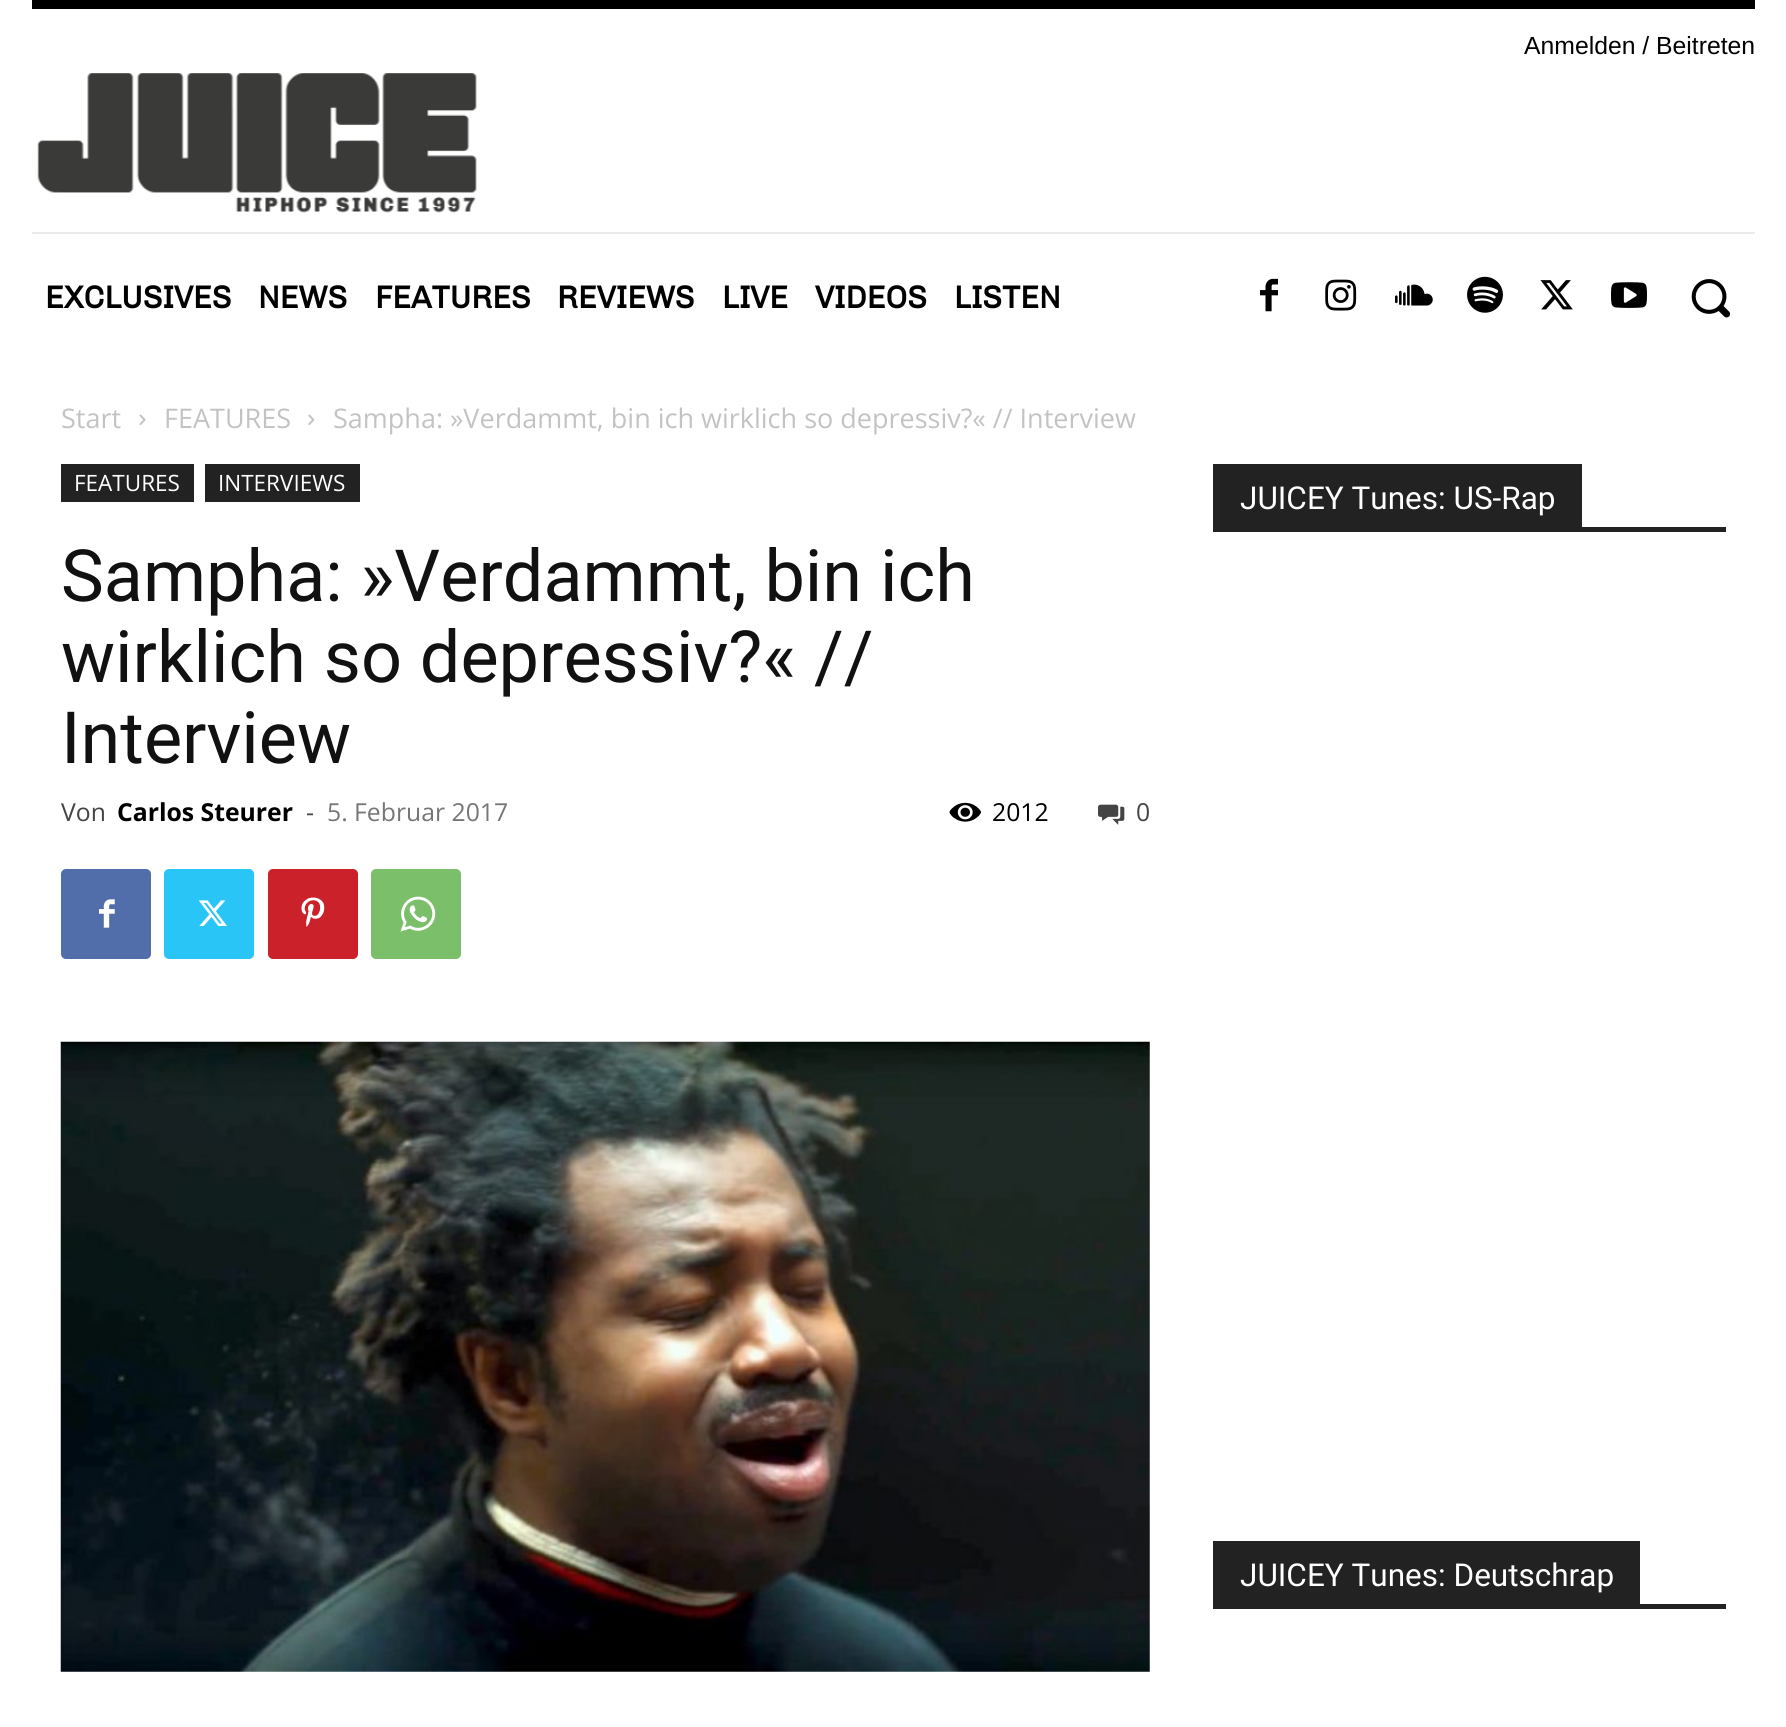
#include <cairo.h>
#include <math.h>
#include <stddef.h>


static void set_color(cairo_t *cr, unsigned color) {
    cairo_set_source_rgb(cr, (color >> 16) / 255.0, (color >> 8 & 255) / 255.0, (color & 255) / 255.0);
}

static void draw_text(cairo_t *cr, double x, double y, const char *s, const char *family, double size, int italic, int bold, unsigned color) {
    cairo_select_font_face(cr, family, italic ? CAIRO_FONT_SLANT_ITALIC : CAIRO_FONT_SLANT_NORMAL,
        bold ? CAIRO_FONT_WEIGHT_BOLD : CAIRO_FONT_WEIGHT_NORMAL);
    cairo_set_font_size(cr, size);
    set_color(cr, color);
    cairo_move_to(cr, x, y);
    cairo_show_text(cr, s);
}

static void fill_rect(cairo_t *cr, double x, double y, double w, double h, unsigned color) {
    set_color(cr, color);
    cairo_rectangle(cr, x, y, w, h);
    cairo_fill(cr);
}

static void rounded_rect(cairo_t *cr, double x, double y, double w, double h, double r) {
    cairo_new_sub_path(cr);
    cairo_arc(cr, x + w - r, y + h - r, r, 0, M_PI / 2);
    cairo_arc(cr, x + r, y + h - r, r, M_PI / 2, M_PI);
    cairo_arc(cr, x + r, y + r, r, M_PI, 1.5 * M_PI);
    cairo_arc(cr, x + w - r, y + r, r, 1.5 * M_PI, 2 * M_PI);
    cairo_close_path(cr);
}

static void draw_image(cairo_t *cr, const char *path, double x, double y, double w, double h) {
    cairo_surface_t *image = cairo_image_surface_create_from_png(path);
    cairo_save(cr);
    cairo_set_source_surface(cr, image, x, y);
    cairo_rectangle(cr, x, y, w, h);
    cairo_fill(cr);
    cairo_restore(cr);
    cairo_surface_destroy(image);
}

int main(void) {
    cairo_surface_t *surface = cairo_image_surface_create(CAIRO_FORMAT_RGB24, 1786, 1727);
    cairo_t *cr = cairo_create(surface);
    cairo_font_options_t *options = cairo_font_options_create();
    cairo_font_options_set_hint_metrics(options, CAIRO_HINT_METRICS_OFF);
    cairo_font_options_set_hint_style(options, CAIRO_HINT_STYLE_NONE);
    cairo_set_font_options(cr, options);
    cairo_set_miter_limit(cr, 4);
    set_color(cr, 0xFFFFFF);
    cairo_paint(cr);
    fill_rect(cr, 32, 0, 1723, 9, 0x000000);
    draw_text(cr, 1524, 54, "Anmelden / Beitreten", "Liberation Sans", 24.75, 0, 0, 0x000000);
    draw_image(cr, "assets/img1.png", 37, 73, 440, 140);
    fill_rect(cr, 32, 232, 1723, 2, 0xEBEBEB);
    draw_text(cr, 45, 308, "EXCLUSIVES", "Chivo", 31.5, 0, 1, 0x000000);
    draw_text(cr, 258, 308, "NEWS", "Chivo", 31.5, 0, 1, 0x000000);
    draw_text(cr, 375, 308, "FEATURES", "Chivo", 31.5, 0, 1, 0x000000);
    draw_text(cr, 557, 308, "REVIEWS", "Chivo", 31.5, 0, 1, 0x000000);
    draw_text(cr, 722, 308, "LIVE", "Chivo", 31.5, 0, 1, 0x000000);
    draw_text(cr, 815, 308, "VIDEOS", "Chivo", 31.5, 0, 1, 0x000000);
    draw_text(cr, 954, 308, "LISTEN", "Chivo", 31.5, 0, 1, 0x000000);
    draw_image(cr, "assets/img2.png", 1260, 278, 18, 34);
    draw_image(cr, "assets/img3.png", 1325, 279, 32, 32);
    draw_image(cr, "assets/img4.png", 1395, 284, 38, 22);
    draw_image(cr, "assets/img5.png", 1467, 276, 36, 37);
    draw_image(cr, "assets/img6.png", 1540, 280, 33, 30);
    draw_image(cr, "assets/img7.png", 1611, 282, 36, 26);
    draw_image(cr, "assets/img8.png", 1691, 279, 40, 39);
    draw_text(cr, 61, 428, "Start", "Open Sans", 27, 0, 0, 0xC3C3C3);
    draw_image(cr, "assets/img9.png", 139, 414, 7, 11);
    draw_text(cr, 164, 428, "FEATURES", "Open Sans", 27, 0, 0, 0xC3C3C3);
    draw_image(cr, "assets/img10.png", 308, 414, 7, 11);
    draw_text(cr, 333, 428, "Sampha: »Verdammt, bin ich wirklich so depressiv?« // Interview", "Open Sans", 27, 0, 0, 0xC3C3C3);
    fill_rect(cr, 61, 464, 133, 38, 0x222222);
    draw_text(cr, 74, 491, "FEATURES", "Open Sans", 22.5, 0, 0, 0xFFFFFF);
    fill_rect(cr, 205, 464, 155, 38, 0x222222);
    draw_text(cr, 218, 491, "INTERVIEWS", "Open Sans", 22.5, 0, 0, 0xFFFFFF);
    draw_text(cr, 61, 601, "Sampha: »Verdammt, bin ich", "Roboto", 72, 0, 0, 0x111111);
    draw_text(cr, 61, 682, "wirklich so depressiv?« //", "Roboto", 72, 0, 0, 0x111111);
    draw_text(cr, 61, 763, "Interview", "Roboto", 72, 0, 0, 0x111111);
    draw_text(cr, 61, 821, "Von", "Open Sans", 24.75, 0, 0, 0x444444);
    draw_text(cr, 117, 821, "Carlos Steurer", "Open Sans", 24.75, 0, 1, 0x000000);
    draw_text(cr, 306, 821, "-", "Open Sans", 24.75, 0, 0, 0x444444);
    draw_text(cr, 327, 821, "5. Februar 2017", "Open Sans", 24.75, 0, 0, 0x767676);
    draw_image(cr, "assets/img11.png", 949, 802, 32, 20);
    draw_text(cr, 992, 821, "2012", "Open Sans", 24.75, 0, 0, 0x000000);
    draw_image(cr, "assets/img12.png", 1098, 804, 27, 21);
    draw_text(cr, 1136, 821, "0", "Open Sans", 24.75, 0, 0, 0x444444);
    set_color(cr, 0x516EAB);
    rounded_rect(cr, 61, 869, 90, 90, 5);
    cairo_fill(cr);
    draw_image(cr, "assets/img13.png", 99, 899, 16, 29);
    set_color(cr, 0x29C5F6);
    rounded_rect(cr, 164, 869, 90, 90, 5);
    cairo_fill(cr);
    draw_image(cr, "assets/img14.png", 198, 900, 29, 26);
    set_color(cr, 0xCA212A);
    rounded_rect(cr, 268, 869, 90, 90, 5);
    cairo_fill(cr);
    draw_image(cr, "assets/img15.png", 301, 897, 24, 30);
    set_color(cr, 0x7BBF6A);
    rounded_rect(cr, 371, 869, 90, 90, 5);
    cairo_fill(cr);
    draw_image(cr, "assets/img16.png", 400, 896, 36, 36);
    draw_image(cr, "assets/img17.png", 60, 1041, 1090, 631);
    fill_rect(cr, 1213, 527, 513, 5, 0x222222);
    fill_rect(cr, 1213, 464, 369, 63, 0x222222);
    draw_text(cr, 1240, 509, "JUICEY Tunes: US-Rap", "Roboto", 31.5, 0, 0, 0xFFFFFF);
    fill_rect(cr, 1213, 1604, 513, 5, 0x222222);
    fill_rect(cr, 1213, 1541, 427, 63, 0x222222);
    draw_text(cr, 1240, 1586, "JUICEY Tunes: Deutschrap", "Roboto", 31.5, 0, 0, 0xFFFFFF);
    cairo_surface_write_to_png(surface, "output.png");
    cairo_font_options_destroy(options);
    cairo_destroy(cr);
    cairo_surface_destroy(surface);
    return 0;
}
